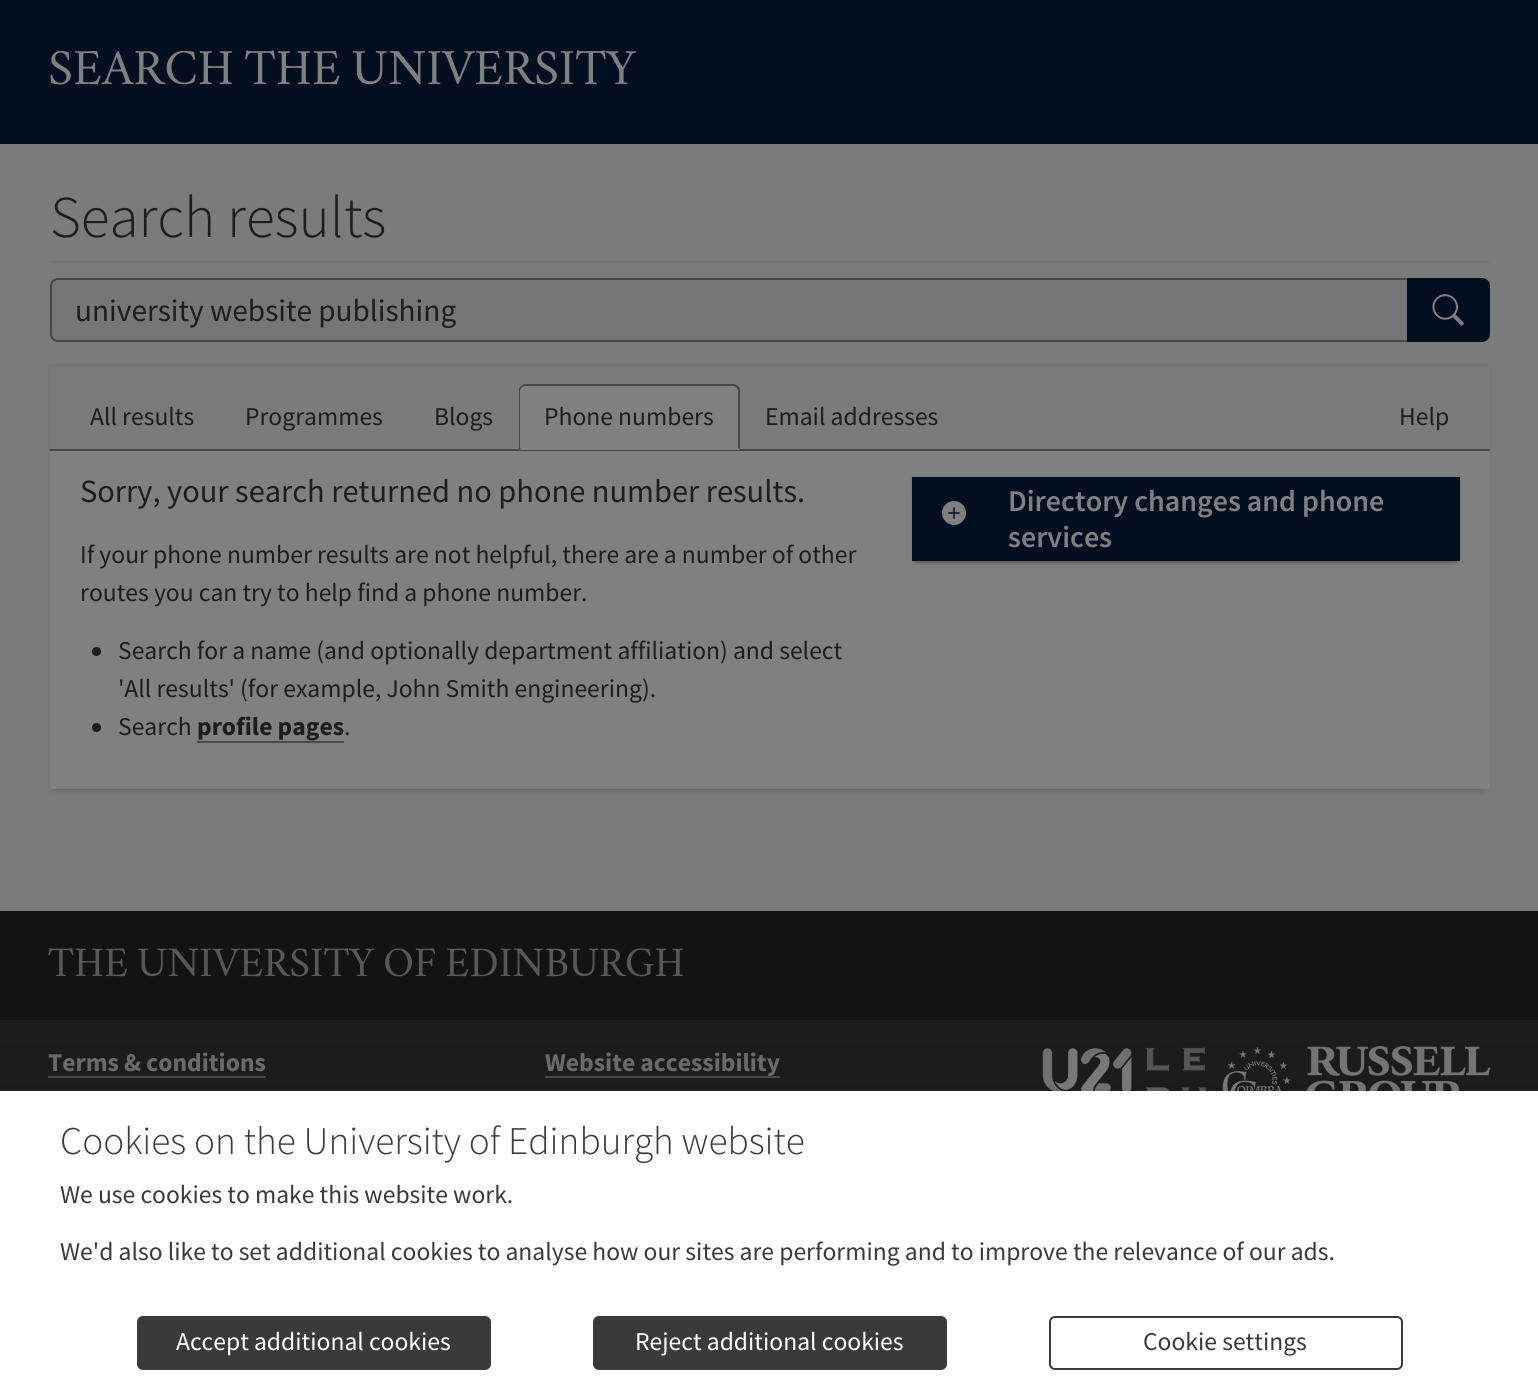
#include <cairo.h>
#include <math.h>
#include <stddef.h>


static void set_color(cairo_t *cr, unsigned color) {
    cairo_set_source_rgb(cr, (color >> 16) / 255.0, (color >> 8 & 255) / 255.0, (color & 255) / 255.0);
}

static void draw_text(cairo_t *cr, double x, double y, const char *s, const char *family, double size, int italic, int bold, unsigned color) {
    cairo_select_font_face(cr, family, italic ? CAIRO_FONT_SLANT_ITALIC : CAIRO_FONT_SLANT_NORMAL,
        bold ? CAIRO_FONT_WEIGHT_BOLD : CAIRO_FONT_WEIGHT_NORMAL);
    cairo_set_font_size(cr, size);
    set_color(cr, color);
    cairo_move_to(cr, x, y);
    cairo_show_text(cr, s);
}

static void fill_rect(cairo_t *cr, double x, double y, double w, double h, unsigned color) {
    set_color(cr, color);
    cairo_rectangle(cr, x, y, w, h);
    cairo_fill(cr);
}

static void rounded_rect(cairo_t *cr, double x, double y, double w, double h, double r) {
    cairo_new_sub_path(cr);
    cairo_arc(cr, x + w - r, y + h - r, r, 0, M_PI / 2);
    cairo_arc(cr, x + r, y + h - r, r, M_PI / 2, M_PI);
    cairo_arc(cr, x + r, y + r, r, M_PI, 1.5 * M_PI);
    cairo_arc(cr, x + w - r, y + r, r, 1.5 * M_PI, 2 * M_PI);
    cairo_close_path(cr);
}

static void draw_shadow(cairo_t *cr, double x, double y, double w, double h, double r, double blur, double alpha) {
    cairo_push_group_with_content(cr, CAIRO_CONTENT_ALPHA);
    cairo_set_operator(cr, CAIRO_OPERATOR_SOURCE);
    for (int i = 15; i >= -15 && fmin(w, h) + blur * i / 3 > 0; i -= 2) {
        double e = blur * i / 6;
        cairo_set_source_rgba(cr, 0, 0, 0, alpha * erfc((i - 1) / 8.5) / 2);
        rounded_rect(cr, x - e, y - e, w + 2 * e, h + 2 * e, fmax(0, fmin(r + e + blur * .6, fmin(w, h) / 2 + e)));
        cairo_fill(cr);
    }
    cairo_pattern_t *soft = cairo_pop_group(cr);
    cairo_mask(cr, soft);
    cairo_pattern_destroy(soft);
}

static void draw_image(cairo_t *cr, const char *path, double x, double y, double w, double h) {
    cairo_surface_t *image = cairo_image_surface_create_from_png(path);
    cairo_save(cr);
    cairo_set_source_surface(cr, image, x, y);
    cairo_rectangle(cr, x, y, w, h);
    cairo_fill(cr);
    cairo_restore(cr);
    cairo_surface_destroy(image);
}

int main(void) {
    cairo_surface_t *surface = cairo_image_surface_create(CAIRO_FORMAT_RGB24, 1538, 1394);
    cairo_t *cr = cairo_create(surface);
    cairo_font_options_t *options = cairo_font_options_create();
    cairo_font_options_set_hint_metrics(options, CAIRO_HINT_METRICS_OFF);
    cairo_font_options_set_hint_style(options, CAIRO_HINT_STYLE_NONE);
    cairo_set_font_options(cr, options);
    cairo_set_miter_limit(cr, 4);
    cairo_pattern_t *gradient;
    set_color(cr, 0x7B7B7B);
    cairo_paint(cr);
    fill_rect(cr, 0, 0, 1538, 144, 0x020F21);
    draw_text(cr, 48, 84, "SEARCH THE UNIVERSITY", "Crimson", 50.9, 0, 0, 0x808080);
    fill_rect(cr, 50, 261, 1440, 2, 0x767676);
    draw_text(cr, 50, 237, "Search results", "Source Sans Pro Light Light", 59.25, 0, 0, 0x1D1D1D);
    set_color(cr, 0x767676);
    cairo_new_path(cr);
    cairo_move_to(cr, 58, 279);
    cairo_line_to(cr, 1408, 279);
    cairo_line_to(cr, 1408, 341);
    cairo_line_to(cr, 58, 341);
    cairo_curve_to(cr, 54, 341, 51, 338, 51, 334);
    cairo_line_to(cr, 51, 286);
    cairo_curve_to(cr, 51, 282, 54, 279, 58, 279);
    cairo_close_path(cr);
    cairo_fill_preserve(cr);
    set_color(cr, 0x474747);
    cairo_stroke(cr);
    draw_text(cr, 75, 321, "university website publishing", "Source Sans Pro", 31.25, 0, 0, 0x1D1D1D);
    set_color(cr, 0x020F21);
    cairo_new_path(cr);
    cairo_move_to(cr, 1408, 279);
    cairo_line_to(cr, 1482, 279);
    cairo_curve_to(cr, 1486, 279, 1489, 282, 1489, 286);
    cairo_line_to(cr, 1489, 334);
    cairo_curve_to(cr, 1489, 338, 1486, 341, 1482, 341);
    cairo_line_to(cr, 1408, 341);
    cairo_close_path(cr);
    cairo_fill_preserve(cr);
    cairo_stroke(cr);
    draw_image(cr, "assets/img1.png", 1432, 294, 32, 32);
    set_color(cr, 0x000000);
    draw_shadow(cr, 50, 366, 1440, 423, 0, 1, 0.1);
    draw_shadow(cr, 57, 380, 1425, 408, 0, 4.5, 0.3);
    fill_rect(cr, 50, 451, 1440, 338, 0x808080);
    fill_rect(cr, 50, 366, 1440, 83, 0x7B7B7B);
    fill_rect(cr, 50, 449, 1440, 2, 0x474747);
    draw_text(cr, 90, 425, "All results", "Source Sans Pro", 25.6, 0, 0, 0x1D1D1D);
    draw_text(cr, 245, 425, "Programmes", "Source Sans Pro", 25.6, 0, 0, 0x1D1D1D);
    draw_text(cr, 434, 425, "Blogs", "Source Sans Pro", 25.6, 0, 0, 0x1D1D1D);
    set_color(cr, 0x808080);
    cairo_new_path(cr);
    cairo_move_to(cr, 525, 384);
    cairo_line_to(cr, 734, 384);
    cairo_curve_to(cr, 737.5, 384, 740, 386.5, 740, 390);
    cairo_line_to(cr, 740, 450);
    cairo_line_to(cr, 519, 450);
    cairo_line_to(cr, 519, 390);
    cairo_curve_to(cr, 519, 386.5, 521.5, 384, 525, 384);
    cairo_close_path(cr);
    cairo_fill(cr);
    set_color(cr, 0x474747);
    cairo_new_path(cr);
    cairo_move_to(cr, 525, 384);
    cairo_curve_to(cr, 524, 384, 522, 385, 521, 386);
    cairo_line_to(cr, 522, 387);
    cairo_line_to(cr, 525, 386);
    cairo_line_to(cr, 734, 386);
    cairo_line_to(cr, 736, 387);
    cairo_line_to(cr, 738, 386);
    cairo_curve_to(cr, 737, 385, 735, 384, 734, 384);
    cairo_close_path(cr);
    cairo_fill(cr);
    cairo_new_path(cr);
    cairo_move_to(cr, 740, 388);
    cairo_line_to(cr, 740, 450);
    cairo_line_to(cr, 738, 448);
    cairo_line_to(cr, 738, 390);
    cairo_line_to(cr, 736, 387);
    cairo_line_to(cr, 738, 386);
    cairo_close_path(cr);
    cairo_fill(cr);
    set_color(cr, 0x808080);
    cairo_new_path(cr);
    cairo_move_to(cr, 740, 450);
    cairo_line_to(cr, 738, 448);
    cairo_line_to(cr, 521, 448);
    cairo_line_to(cr, 519, 450);
    cairo_close_path(cr);
    cairo_fill(cr);
    set_color(cr, 0x474747);
    cairo_new_path(cr);
    cairo_move_to(cr, 519, 450);
    cairo_line_to(cr, 521, 448);
    cairo_line_to(cr, 520, 448);
    cairo_line_to(cr, 520, 390);
    cairo_line_to(cr, 522, 387);
    cairo_line_to(cr, 521, 386);
    cairo_curve_to(cr, 520, 387, 519, 388, 519, 390);
    cairo_close_path(cr);
    cairo_fill(cr);
    draw_text(cr, 544, 425, "Phone numbers", "Source Sans Pro", 25.6, 0, 0, 0x1D1D1D);
    draw_text(cr, 765, 425, "Email addresses", "Source Sans Pro", 25.6, 0, 0, 0x1D1D1D);
    draw_text(cr, 1399, 425, "Help", "Source Sans Pro", 25.6, 0, 0, 0x1D1D1D);
    draw_text(cr, 80, 502, "Sorry, your search returned no phone number results.", "Source Sans Pro", 32.4, 0, 0, 0x1D1D1D);
    draw_text(cr, 80, 563, "If your phone number results are not helpful, there are a number of other", "Source Sans Pro", 25.6, 0, 0, 0x1D1D1D);
    draw_text(cr, 80, 601, "routes you can try to help find a phone number.", "Source Sans Pro", 25.6, 0, 0, 0x1D1D1D);
    cairo_new_path(cr);
    cairo_arc(cr, 96.5, 651.5, 4.5, 0, 2 * M_PI);
    cairo_fill(cr);
    draw_text(cr, 118, 659, "Search for a name (and optionally department affiliation) and select", "Source Sans Pro", 25.6, 0, 0, 0x1D1D1D);
    draw_text(cr, 118, 697, "'All results' (for example, John Smith engineering).", "Source Sans Pro", 25.6, 0, 0, 0x1D1D1D);
    cairo_new_path(cr);
    cairo_arc(cr, 96.5, 727.5, 4.5, 0, 2 * M_PI);
    cairo_fill(cr);
    draw_text(cr, 118, 735, "Search", "Source Sans Pro", 25.6, 0, 0, 0x1D1D1D);
    draw_text(cr, 197, 735, "profile pages", "Source Sans Pro", 25.6, 0, 1, 0x1D1D1D);
    fill_rect(cr, 197, 741, 147, 2, 0x4A4A4A);
    draw_text(cr, 344, 735, ".", "Source Sans Pro", 25.6, 0, 0, 0x1D1D1D);
    set_color(cr, 0x000000);
    draw_shadow(cr, 912, 477, 548, 84, 0, 1, 0.1);
    draw_shadow(cr, 920, 491, 532, 69, 0, 4.5, 0.3);
    draw_shadow(cr, 914, 482, 544, 81, 0, 1, 0.15);
    fill_rect(cr, 912, 477, 548, 84, 0x020F21);
    draw_image(cr, "assets/img2.png", 942, 501, 24, 24);
    draw_text(cr, 1008, 511, "Directory changes and phone", "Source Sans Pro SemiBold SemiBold", 30, 0, 0, 0x808080);
    draw_text(cr, 1008, 547, "services", "Source Sans Pro SemiBold SemiBold", 30, 0, 0, 0x808080);
    fill_rect(cr, 0, 911, 1538, 109, 0x131313);
    draw_text(cr, 48, 976, "THE UNIVERSITY OF EDINBURGH", "Crimson", 42.4, 0, 0, 0x585858);
    gradient = cairo_pattern_create_linear(770, 1020, 770, 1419);
    cairo_pattern_add_color_stop_rgba(gradient, 0, 0.114, 0.114, 0.114, 1);
    cairo_pattern_add_color_stop_rgba(gradient, 1, 0.075, 0.075, 0.075, 1);
    cairo_set_source(cr, gradient);
    cairo_pattern_destroy(gradient);
    cairo_rectangle(cr, 0, 1020, 1538, 71);
    cairo_fill(cr);
    draw_text(cr, 48, 1071, "Terms & conditions", "Source Sans Pro", 25.6, 0, 1, 0x6A6A6A);
    fill_rect(cr, 48, 1076, 218, 2, 0x474747);
    draw_text(cr, 545, 1071, "Website accessibility", "Source Sans Pro", 25.6, 0, 1, 0x6A6A6A);
    fill_rect(cr, 545, 1076, 235, 2, 0x474747);
    draw_image(cr, "assets/img3.png", 1042, 1046, 449, 45);
    fill_rect(cr, 0, 1091, 1538, 303, 0xFFFFFF);
    draw_text(cr, 60, 1154, "Cookies on the University of Edinburgh website", "Source Sans Pro Light Light", 39.25, 0, 0, 0x3A3A3A);
    draw_text(cr, 60, 1203, "We use cookies to make this website work.", "Source Sans Pro", 25.6, 0, 0, 0x3A3A3A);
    draw_text(cr, 60, 1260, "We'd also like to set additional cookies to analyse how our sites are performing and to improve the relevance of our ads.", "Source Sans Pro", 25.6, 0, 0, 0x3A3A3A);
    rounded_rect(cr, 138, 1317, 352, 52, 5);
    cairo_fill_preserve(cr);
    cairo_stroke(cr);
    draw_text(cr, 176, 1350, "Accept additional cookies", "Source Sans Pro", 25.6, 0, 0, 0xFFFFFF);
    set_color(cr, 0x3A3A3A);
    rounded_rect(cr, 594, 1317, 352, 52, 5);
    cairo_fill_preserve(cr);
    cairo_stroke(cr);
    draw_text(cr, 635, 1350, "Reject additional cookies", "Source Sans Pro", 25.6, 0, 0, 0xFFFFFF);
    rounded_rect(cr, 1050, 1317, 352, 52, 5);
    set_color(cr, 0x3A3A3A);
    cairo_stroke(cr);
    draw_text(cr, 1143, 1350, "Cookie settings", "Source Sans Pro", 25.6, 0, 0, 0x3A3A3A);
    cairo_surface_write_to_png(surface, "output.png");
    cairo_font_options_destroy(options);
    cairo_destroy(cr);
    cairo_surface_destroy(surface);
    return 0;
}
